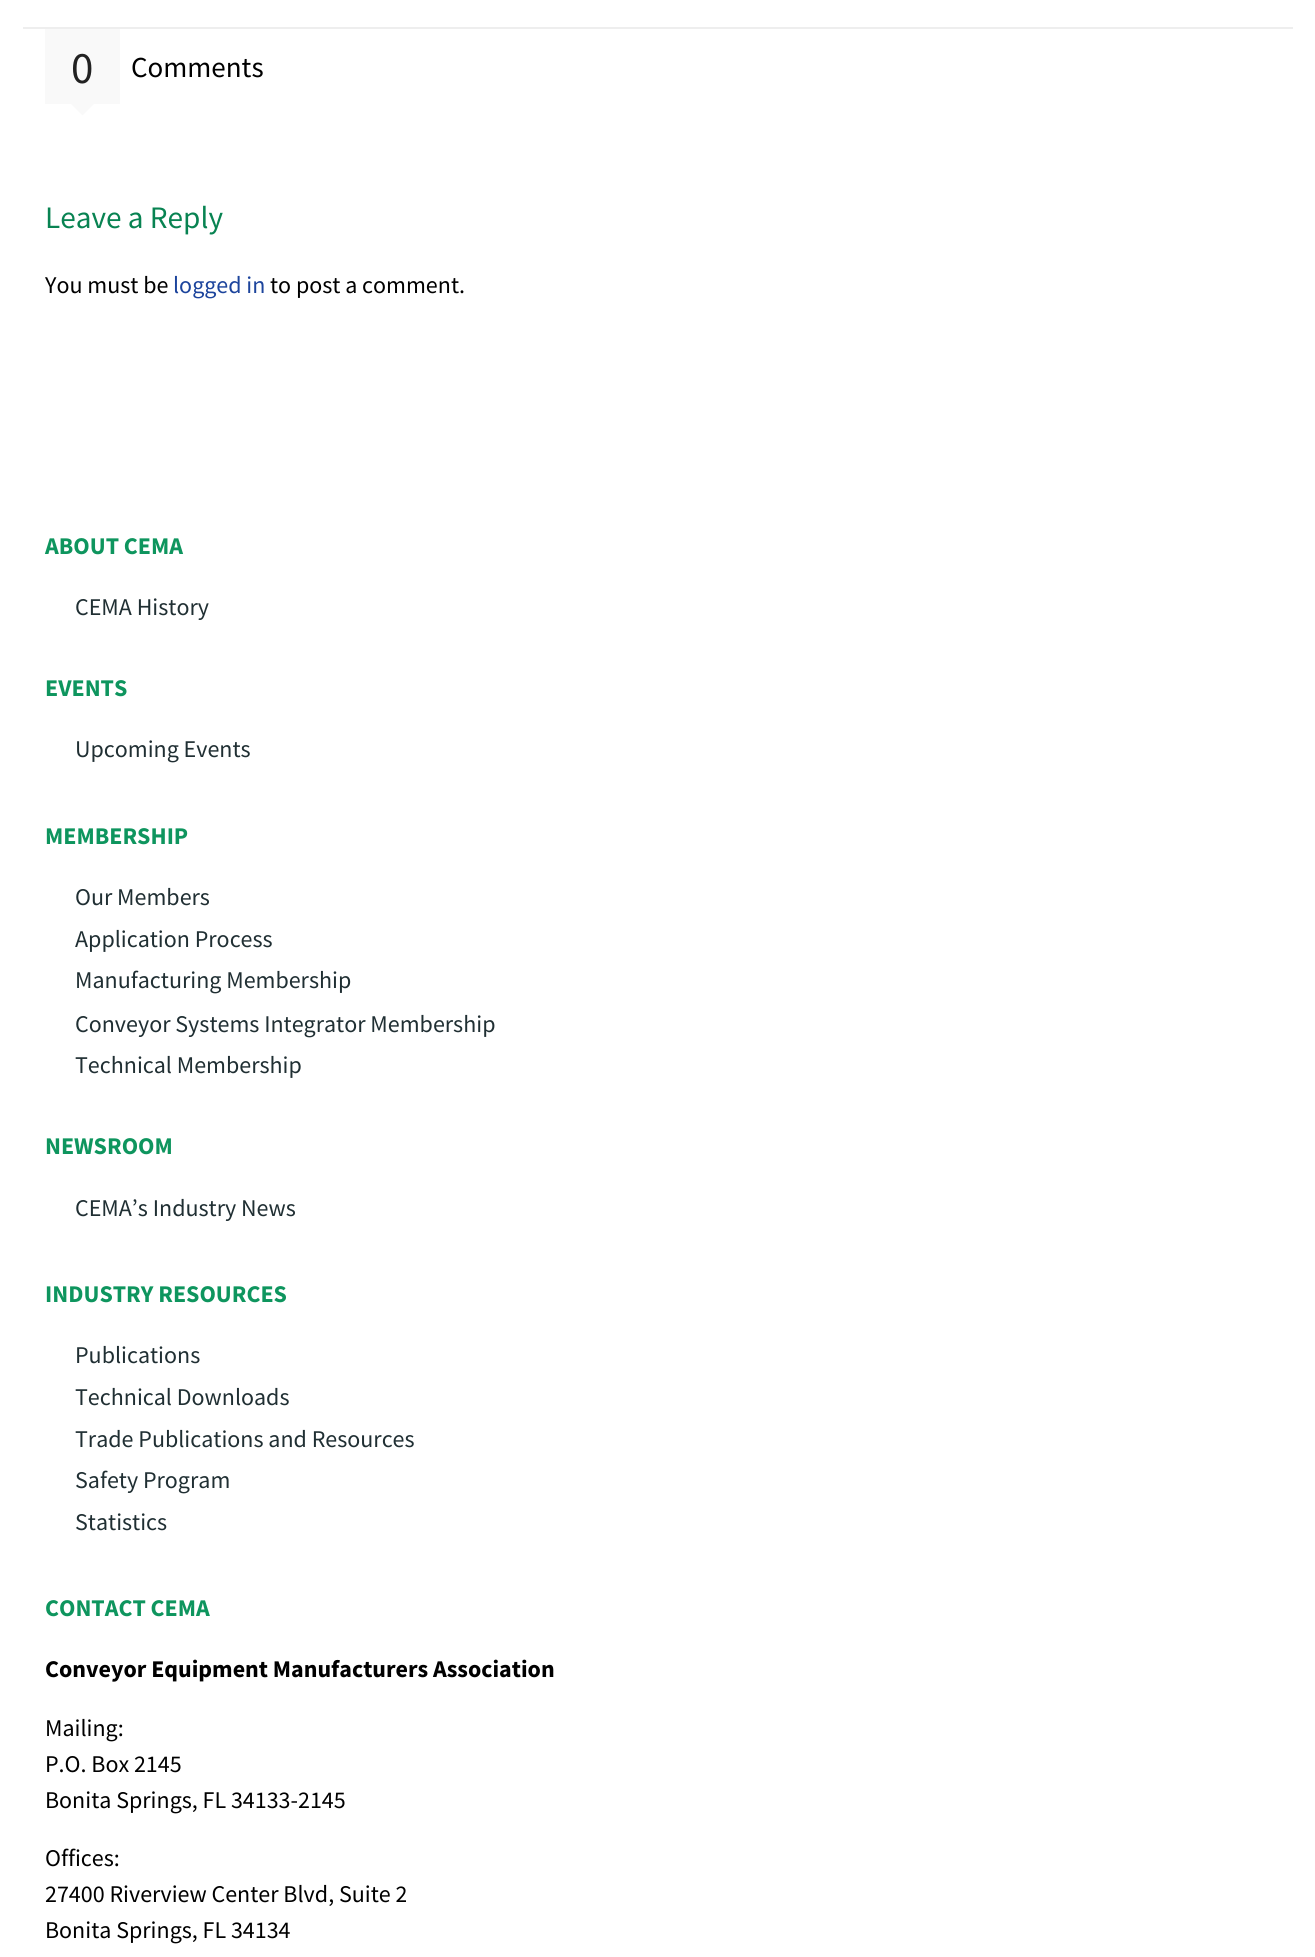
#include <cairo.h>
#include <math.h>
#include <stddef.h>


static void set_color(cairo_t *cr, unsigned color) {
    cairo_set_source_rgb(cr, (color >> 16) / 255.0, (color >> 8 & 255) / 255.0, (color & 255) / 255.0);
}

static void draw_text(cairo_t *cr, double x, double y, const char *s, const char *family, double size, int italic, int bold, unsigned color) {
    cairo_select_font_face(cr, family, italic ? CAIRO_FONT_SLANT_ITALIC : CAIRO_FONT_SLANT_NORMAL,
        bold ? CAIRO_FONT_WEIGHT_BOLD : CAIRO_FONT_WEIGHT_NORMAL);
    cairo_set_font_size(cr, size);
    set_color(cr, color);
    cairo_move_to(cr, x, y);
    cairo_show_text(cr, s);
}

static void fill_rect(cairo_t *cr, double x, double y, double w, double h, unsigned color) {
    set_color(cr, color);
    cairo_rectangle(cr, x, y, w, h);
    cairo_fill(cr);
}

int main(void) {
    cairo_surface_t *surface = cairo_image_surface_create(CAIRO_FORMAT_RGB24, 1315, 1957);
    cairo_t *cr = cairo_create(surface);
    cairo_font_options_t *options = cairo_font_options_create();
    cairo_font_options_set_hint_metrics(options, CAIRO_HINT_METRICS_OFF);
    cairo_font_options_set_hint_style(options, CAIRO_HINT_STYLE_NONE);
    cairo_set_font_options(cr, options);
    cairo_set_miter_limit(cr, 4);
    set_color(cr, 0xFFFFFF);
    cairo_paint(cr);
    fill_rect(cr, 23, 27, 1270, 2, 0xEEEEEE);
    fill_rect(cr, 45, 29, 75, 75, 0xF9F9F9);
    draw_text(cr, 71, 83, "0", "Source Sans Pro", 45, 0, 0, 0x222222);
    set_color(cr, 0xF9F9F9);
    cairo_new_path(cr);
    cairo_move_to(cr, 67.5, 100.5);
    cairo_line_to(cr, 97.5, 100.5);
    cairo_line_to(cr, 82.5, 115.5);
    cairo_close_path(cr);
    cairo_fill(cr);
    draw_text(cr, 131, 77, "Comments", "Source Sans Pro", 29, 0, 0, 0x000000);
    draw_text(cr, 45, 228, "Leave a Reply", "Source Sans Pro", 31.25, 0, 0, 0x088352);
    draw_text(cr, 45, 293, "You must be", "Source Sans Pro", 24, 0, 0, 0x000000);
    draw_text(cr, 173, 293, "logged in", "Source Sans Pro", 24, 0, 0, 0x1C449C);
    draw_text(cr, 270, 293, "to post a comment.", "Source Sans Pro", 24, 0, 0, 0x000000);
    draw_text(cr, 45, 554, "ABOUT CEMA", "Source Sans Pro", 24, 0, 1, 0x0E955E);
    draw_text(cr, 75, 615, "CEMA History", "Source Sans Pro", 24, 0, 0, 0x202F33);
    draw_text(cr, 45, 696, "EVENTS", "Source Sans Pro", 24, 0, 1, 0x0E955E);
    draw_text(cr, 75, 757, "Upcoming Events", "Source Sans Pro", 24, 0, 0, 0x202F33);
    draw_text(cr, 45, 844, "MEMBERSHIP", "Source Sans Pro", 24, 0, 1, 0x0E955E);
    draw_text(cr, 75, 905, "Our Members", "Source Sans Pro", 24, 0, 0, 0x202F33);
    draw_text(cr, 75, 947, "Application Process", "Source Sans Pro", 24, 0, 0, 0x202F33);
    draw_text(cr, 75, 988, "Manufacturing Membership", "Source Sans Pro", 24, 0, 0, 0x202F33);
    draw_text(cr, 75, 1032, "Conveyor Systems Integrator Membership", "Source Sans Pro", 24, 0, 0, 0x202F33);
    draw_text(cr, 75, 1073, "Technical Membership", "Source Sans Pro", 24, 0, 0, 0x202F33);
    draw_text(cr, 45, 1154, "NEWSROOM", "Source Sans Pro", 24, 0, 1, 0x0E955E);
    draw_text(cr, 75, 1216, "CEMA’s Industry News", "Source Sans Pro", 24, 0, 0, 0x202F33);
    draw_text(cr, 45, 1302, "INDUSTRY RESOURCES", "Source Sans Pro", 24, 0, 1, 0x0E955E);
    draw_text(cr, 75, 1363, "Publications", "Source Sans Pro", 24, 0, 0, 0x202F33);
    draw_text(cr, 75, 1405, "Technical Downloads", "Source Sans Pro", 24, 0, 0, 0x202F33);
    draw_text(cr, 75, 1447, "Trade Publications and Resources", "Source Sans Pro", 24, 0, 0, 0x202F33);
    draw_text(cr, 75, 1488, "Safety Program", "Source Sans Pro", 24, 0, 0, 0x202F33);
    draw_text(cr, 75, 1530, "Statistics", "Source Sans Pro", 24, 0, 0, 0x202F33);
    draw_text(cr, 45, 1616, "CONTACT CEMA", "Source Sans Pro", 24, 0, 1, 0x0E955E);
    draw_text(cr, 45, 1677, "Conveyor Equipment Manufacturers Association", "Source Sans Pro", 24, 0, 1, 0x000000);
    draw_text(cr, 45, 1736, "Mailing:", "Source Sans Pro", 24, 0, 0, 0x000000);
    draw_text(cr, 45, 1772, "P.O. Box 2145", "Source Sans Pro", 24, 0, 0, 0x000000);
    draw_text(cr, 45, 1808, "Bonita Springs, FL 34133-2145", "Source Sans Pro", 24, 0, 0, 0x000000);
    draw_text(cr, 45, 1866, "Offices:", "Source Sans Pro", 24, 0, 0, 0x000000);
    draw_text(cr, 45, 1902, "27400 Riverview Center Blvd, Suite 2", "Source Sans Pro", 24, 0, 0, 0x000000);
    draw_text(cr, 45, 1938, "Bonita Springs, FL 34134", "Source Sans Pro", 24, 0, 0, 0x000000);
    cairo_surface_write_to_png(surface, "output.png");
    cairo_font_options_destroy(options);
    cairo_destroy(cr);
    cairo_surface_destroy(surface);
    return 0;
}
